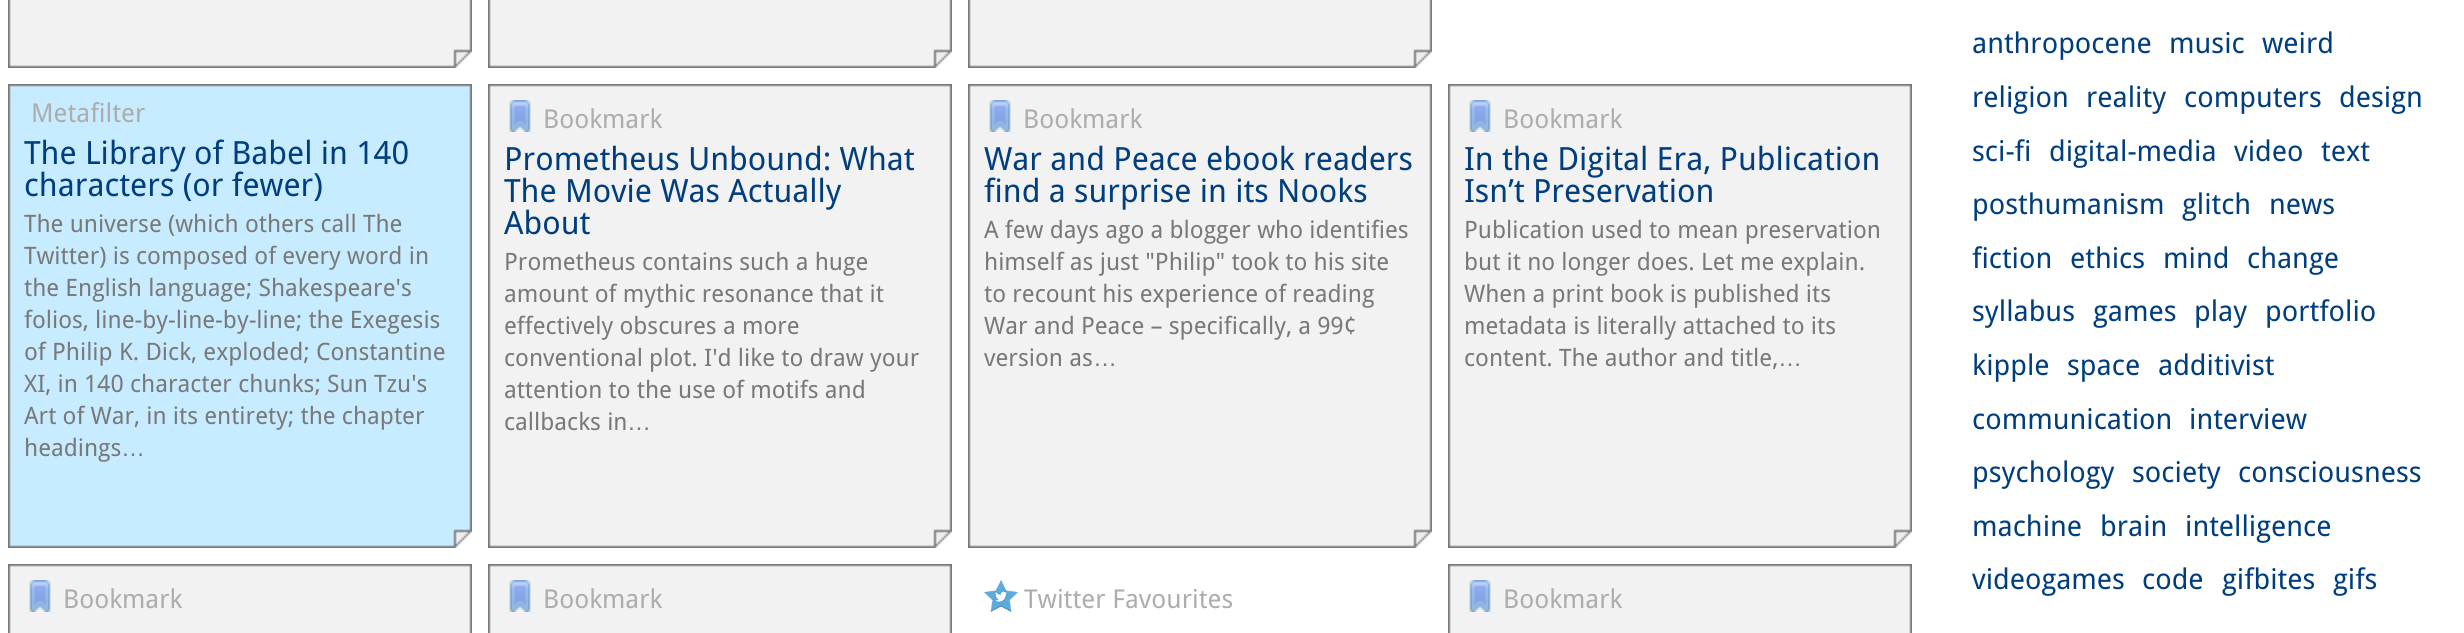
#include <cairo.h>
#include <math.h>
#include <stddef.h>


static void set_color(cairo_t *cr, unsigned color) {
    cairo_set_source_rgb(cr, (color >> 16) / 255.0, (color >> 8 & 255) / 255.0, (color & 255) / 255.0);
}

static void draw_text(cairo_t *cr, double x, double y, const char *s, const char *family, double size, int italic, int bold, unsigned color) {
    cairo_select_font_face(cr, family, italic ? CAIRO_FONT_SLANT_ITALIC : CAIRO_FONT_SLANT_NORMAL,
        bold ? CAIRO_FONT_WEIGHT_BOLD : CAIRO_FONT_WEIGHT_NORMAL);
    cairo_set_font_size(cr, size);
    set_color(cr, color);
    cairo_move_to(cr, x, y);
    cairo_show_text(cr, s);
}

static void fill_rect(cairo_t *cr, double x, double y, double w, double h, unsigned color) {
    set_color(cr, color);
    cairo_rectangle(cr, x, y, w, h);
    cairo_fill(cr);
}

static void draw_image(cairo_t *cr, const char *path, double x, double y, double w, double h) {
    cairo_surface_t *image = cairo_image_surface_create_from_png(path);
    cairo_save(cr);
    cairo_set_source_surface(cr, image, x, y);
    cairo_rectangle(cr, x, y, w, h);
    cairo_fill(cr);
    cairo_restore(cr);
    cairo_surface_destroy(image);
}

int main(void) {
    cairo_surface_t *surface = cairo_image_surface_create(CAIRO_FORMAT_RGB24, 2464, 633);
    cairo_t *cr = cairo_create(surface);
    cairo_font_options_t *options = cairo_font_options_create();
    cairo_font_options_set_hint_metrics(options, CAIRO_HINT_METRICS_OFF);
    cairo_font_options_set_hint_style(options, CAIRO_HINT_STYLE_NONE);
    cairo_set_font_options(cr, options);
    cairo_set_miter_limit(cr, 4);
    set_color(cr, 0xFFFFFF);
    cairo_paint(cr);
    fill_rect(cr, 9, 0, 462, 67, 0xF2F2F3);
    draw_image(cr, "assets/img1.png", 8, 0, 464, 68);
    fill_rect(cr, 489, 0, 462, 67, 0xF2F2F3);
    draw_image(cr, "assets/img1.png", 488, 0, 464, 68);
    fill_rect(cr, 969, 0, 462, 67, 0xF2F2F3);
    draw_image(cr, "assets/img1.png", 968, 0, 464, 68);
    fill_rect(cr, 9, 85, 462, 462, 0xC7ECFF);
    draw_image(cr, "assets/img2.png", 8, 84, 464, 464);
    draw_text(cr, 31, 122, "Metafilter", "Droid Sans", 26, 0, 0, 0xADADAD);
    draw_text(cr, 24, 164, "The Library of Babel in 140", "Droid Sans", 32, 0, 0, 0x003E7E);
    draw_text(cr, 24, 196, "characters (or fewer)", "Droid Sans", 32, 0, 0, 0x003E7E);
    draw_text(cr, 24, 232, "The universe (which others call The", "Droid Sans", 24, 0, 0, 0x797979);
    draw_text(cr, 24, 264, "Twitter) is composed of every word in", "Droid Sans", 24, 0, 0, 0x797979);
    draw_text(cr, 24, 296, "the English language; Shakespeare's", "Droid Sans", 24, 0, 0, 0x797979);
    draw_text(cr, 24, 328, "folios, line-by-line-by-line; the Exegesis", "Droid Sans", 24, 0, 0, 0x797979);
    draw_text(cr, 24, 360, "of Philip K. Dick, exploded; Constantine", "Droid Sans", 24, 0, 0, 0x797979);
    draw_text(cr, 24, 392, "XI, in 140 character chunks; Sun Tzu's", "Droid Sans", 24, 0, 0, 0x797979);
    draw_text(cr, 24, 424, "Art of War, in its entirety; the chapter", "Droid Sans", 24, 0, 0, 0x797979);
    draw_text(cr, 24, 456, "headings", "Droid Sans", 24, 0, 0, 0x797979);
    draw_text(cr, 121, 456, "…", "Liberation Sans", 24, 0, 0, 0x797979);
    fill_rect(cr, 489, 85, 462, 462, 0xF2F2F3);
    draw_image(cr, "assets/img3.png", 488, 84, 464, 464);
    draw_image(cr, "assets/img4.png", 509, 100, 22, 32);
    draw_text(cr, 543, 128, "Bookmark", "Droid Sans", 26, 0, 0, 0xADADAD);
    draw_text(cr, 504, 170, "Prometheus Unbound: What", "Droid Sans", 32, 0, 0, 0x003E7E);
    draw_text(cr, 504, 202, "The Movie Was Actually", "Droid Sans", 32, 0, 0, 0x003E7E);
    draw_text(cr, 504, 234, "About", "Droid Sans", 32, 0, 0, 0x003E7E);
    draw_text(cr, 504, 270, "Prometheus contains such a huge", "Droid Sans", 24, 0, 0, 0x797979);
    draw_text(cr, 504, 302, "amount of mythic resonance that it", "Droid Sans", 24, 0, 0, 0x797979);
    draw_text(cr, 504, 334, "effectively obscures a more", "Droid Sans", 24, 0, 0, 0x797979);
    draw_text(cr, 504, 366, "conventional plot. I'd like to draw your", "Droid Sans", 24, 0, 0, 0x797979);
    draw_text(cr, 504, 398, "attention to the use of motifs and", "Droid Sans", 24, 0, 0, 0x797979);
    draw_text(cr, 504, 430, "callbacks in", "Droid Sans", 24, 0, 0, 0x797979);
    draw_text(cr, 627, 430, "…", "Liberation Sans", 24, 0, 0, 0x797979);
    fill_rect(cr, 969, 85, 462, 462, 0xF2F2F3);
    draw_image(cr, "assets/img3.png", 968, 84, 464, 464);
    draw_image(cr, "assets/img4.png", 989, 100, 22, 32);
    draw_text(cr, 1023, 128, "Bookmark", "Droid Sans", 26, 0, 0, 0xADADAD);
    draw_text(cr, 984, 170, "War and Peace ebook readers", "Droid Sans", 32, 0, 0, 0x003E7E);
    draw_text(cr, 984, 202, "find a surprise in its Nooks", "Droid Sans", 32, 0, 0, 0x003E7E);
    draw_text(cr, 984, 238, "A few days ago a blogger who identifies", "Droid Sans", 24, 0, 0, 0x797979);
    draw_text(cr, 984, 270, "himself as just \"Philip\" took to his site", "Droid Sans", 24, 0, 0, 0x797979);
    draw_text(cr, 984, 302, "to recount his experience of reading", "Droid Sans", 24, 0, 0, 0x797979);
    draw_text(cr, 984, 334, "War and Peace – specifically, a 99¢", "Droid Sans", 24, 0, 0, 0x797979);
    draw_text(cr, 984, 366, "version as", "Droid Sans", 24, 0, 0, 0x797979);
    draw_text(cr, 1093, 366, "…", "Liberation Sans", 24, 0, 0, 0x797979);
    fill_rect(cr, 1449, 85, 462, 462, 0xF2F2F3);
    draw_image(cr, "assets/img3.png", 1448, 84, 464, 464);
    draw_image(cr, "assets/img4.png", 1469, 100, 22, 32);
    draw_text(cr, 1503, 128, "Bookmark", "Droid Sans", 26, 0, 0, 0xADADAD);
    draw_text(cr, 1464, 170, "In the Digital Era, Publication", "Droid Sans", 32, 0, 0, 0x003E7E);
    draw_text(cr, 1464, 202, "Isn’t Preservation", "Droid Sans", 32, 0, 0, 0x003E7E);
    draw_text(cr, 1464, 238, "Publication used to mean preservation", "Droid Sans", 24, 0, 0, 0x797979);
    draw_text(cr, 1464, 270, "but it no longer does. Let me explain.", "Droid Sans", 24, 0, 0, 0x797979);
    draw_text(cr, 1464, 302, "When a print book is published its", "Droid Sans", 24, 0, 0, 0x797979);
    draw_text(cr, 1464, 334, "metadata is literally attached to its", "Droid Sans", 24, 0, 0, 0x797979);
    draw_text(cr, 1464, 366, "content. The author and title,", "Droid Sans", 24, 0, 0, 0x797979);
    draw_text(cr, 1778, 366, "…", "Liberation Sans", 24, 0, 0, 0x797979);
    fill_rect(cr, 9, 565, 462, 68, 0xF2F2F3);
    draw_image(cr, "assets/img5.png", 8, 564, 464, 69);
    draw_image(cr, "assets/img4.png", 29, 580, 22, 32);
    draw_text(cr, 63, 608, "Bookmark", "Droid Sans", 26, 0, 0, 0xADADAD);
    fill_rect(cr, 489, 565, 462, 68, 0xF2F2F3);
    draw_image(cr, "assets/img5.png", 488, 564, 464, 69);
    draw_image(cr, "assets/img4.png", 509, 580, 22, 32);
    draw_text(cr, 543, 608, "Bookmark", "Droid Sans", 26, 0, 0, 0xADADAD);
    draw_image(cr, "assets/img6.png", 984, 580, 34, 32);
    draw_text(cr, 1024, 608, "Twitter Favourites", "Droid Sans", 26, 0, 0, 0xADADAD);
    fill_rect(cr, 1449, 565, 462, 68, 0xF2F2F3);
    draw_image(cr, "assets/img5.png", 1448, 564, 464, 69);
    draw_image(cr, "assets/img4.png", 1469, 580, 22, 32);
    draw_text(cr, 1503, 608, "Bookmark", "Droid Sans", 26, 0, 0, 0xADADAD);
    draw_text(cr, 1972, 53, "anthropocene", "Droid Sans", 28.5, 0, 0, 0x003E7E);
    draw_text(cr, 2169, 53, "music", "Droid Sans", 28.5, 0, 0, 0x003E7E);
    draw_text(cr, 2262, 53, "weird", "Droid Sans", 28.5, 0, 0, 0x003E7E);
    draw_text(cr, 1972, 107, "religion", "Droid Sans", 28.5, 0, 0, 0x003E7E);
    draw_text(cr, 2086, 107, "reality", "Droid Sans", 28.5, 0, 0, 0x003E7E);
    draw_text(cr, 2184, 107, "computers", "Droid Sans", 28.5, 0, 0, 0x003E7E);
    draw_text(cr, 2339, 107, "design", "Droid Sans", 28.5, 0, 0, 0x003E7E);
    draw_text(cr, 1972, 161, "sci-fi", "Droid Sans", 28.5, 0, 0, 0x003E7E);
    draw_text(cr, 2049, 161, "digital-media", "Droid Sans", 28.5, 0, 0, 0x003E7E);
    draw_text(cr, 2234, 161, "video", "Droid Sans", 28.5, 0, 0, 0x003E7E);
    draw_text(cr, 2321, 161, "text", "Droid Sans", 28.5, 0, 0, 0x003E7E);
    draw_text(cr, 1972, 214, "posthumanism", "Droid Sans", 28.5, 0, 0, 0x003E7E);
    draw_text(cr, 2182, 214, "glitch", "Droid Sans", 28.5, 0, 0, 0x003E7E);
    draw_text(cr, 2269, 214, "news", "Droid Sans", 28.5, 0, 0, 0x003E7E);
    draw_text(cr, 1972, 268, "fiction", "Droid Sans", 28.5, 0, 0, 0x003E7E);
    draw_text(cr, 2070, 268, "ethics", "Droid Sans", 28.5, 0, 0, 0x003E7E);
    draw_text(cr, 2163, 268, "mind", "Droid Sans", 28.5, 0, 0, 0x003E7E);
    draw_text(cr, 2247, 268, "change", "Droid Sans", 28.5, 0, 0, 0x003E7E);
    draw_text(cr, 1972, 321, "syllabus", "Droid Sans", 28.5, 0, 0, 0x003E7E);
    draw_text(cr, 2093, 321, "games", "Droid Sans", 28.5, 0, 0, 0x003E7E);
    draw_text(cr, 2194, 321, "play", "Droid Sans", 28.5, 0, 0, 0x003E7E);
    draw_text(cr, 2265, 321, "portfolio", "Droid Sans", 28.5, 0, 0, 0x003E7E);
    draw_text(cr, 1972, 375, "kipple", "Droid Sans", 28.5, 0, 0, 0x003E7E);
    draw_text(cr, 2067, 375, "space", "Droid Sans", 28.5, 0, 0, 0x003E7E);
    draw_text(cr, 2158, 375, "additivist", "Droid Sans", 28.5, 0, 0, 0x003E7E);
    draw_text(cr, 1972, 429, "communication", "Droid Sans", 28.5, 0, 0, 0x003E7E);
    draw_text(cr, 2189, 429, "interview", "Droid Sans", 28.5, 0, 0, 0x003E7E);
    draw_text(cr, 1972, 482, "psychology", "Droid Sans", 28.5, 0, 0, 0x003E7E);
    draw_text(cr, 2132, 482, "society", "Droid Sans", 28.5, 0, 0, 0x003E7E);
    draw_text(cr, 2238, 482, "consciousness", "Droid Sans", 28.5, 0, 0, 0x003E7E);
    draw_text(cr, 1972, 536, "machine", "Droid Sans", 28.5, 0, 0, 0x003E7E);
    draw_text(cr, 2100, 536, "brain", "Droid Sans", 28.5, 0, 0, 0x003E7E);
    draw_text(cr, 2185, 536, "intelligence", "Droid Sans", 28.5, 0, 0, 0x003E7E);
    draw_text(cr, 1972, 589, "videogames", "Droid Sans", 28.5, 0, 0, 0x003E7E);
    draw_text(cr, 2142, 589, "code", "Droid Sans", 28.5, 0, 0, 0x003E7E);
    draw_text(cr, 2222, 589, "gifbites", "Droid Sans", 28.5, 0, 0, 0x003E7E);
    draw_text(cr, 2333, 589, "gifs", "Droid Sans", 28.5, 0, 0, 0x003E7E);
    cairo_surface_write_to_png(surface, "output.png");
    cairo_font_options_destroy(options);
    cairo_destroy(cr);
    cairo_surface_destroy(surface);
    return 0;
}
